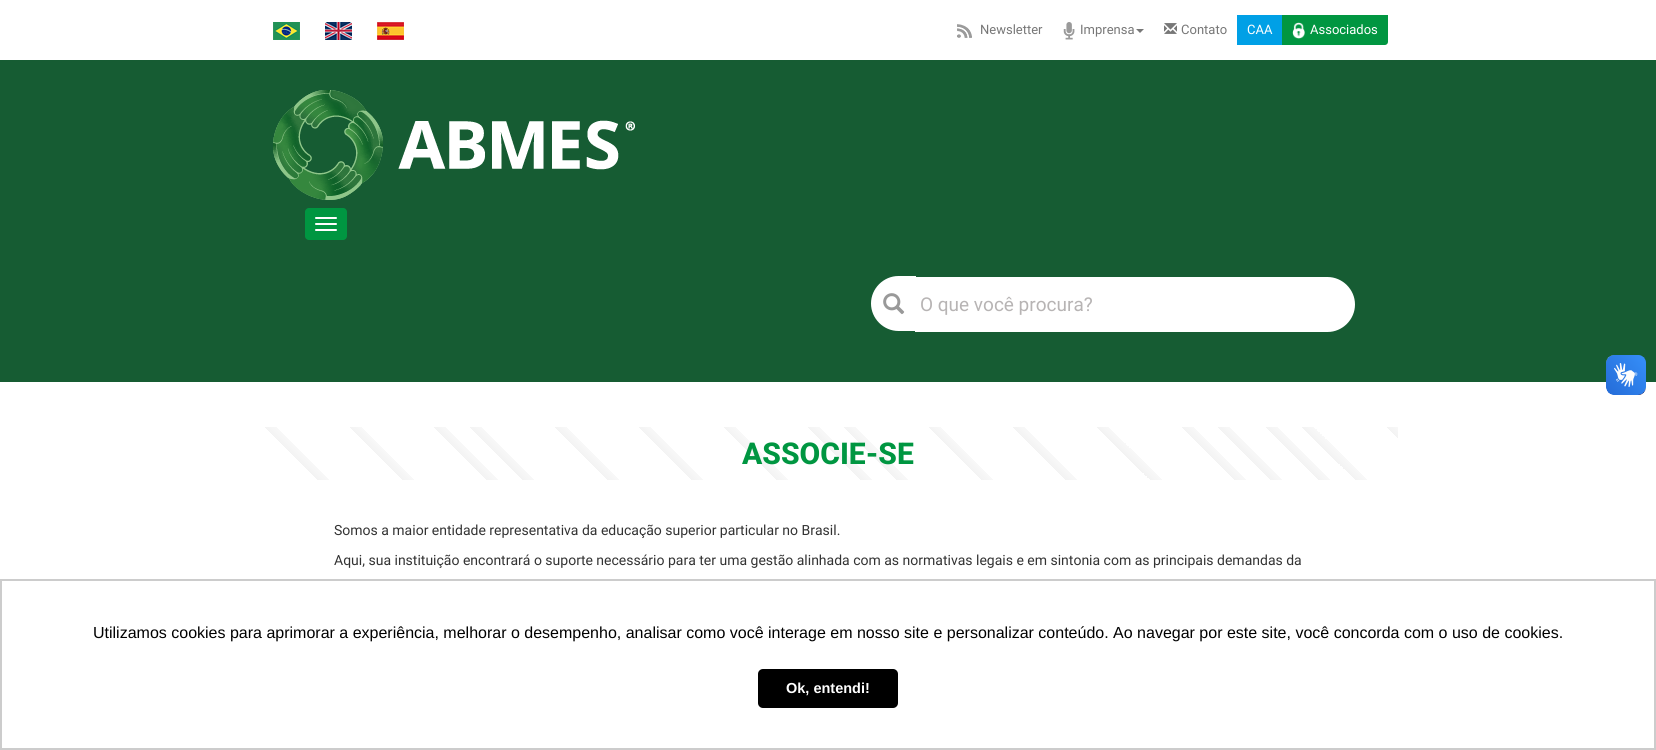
#include <cairo.h>
#include <math.h>
#include <stddef.h>


static void set_color(cairo_t *cr, unsigned color) {
    cairo_set_source_rgb(cr, (color >> 16) / 255.0, (color >> 8 & 255) / 255.0, (color & 255) / 255.0);
}

static void draw_text(cairo_t *cr, double x, double y, const char *s, const char *family, double size, int italic, int bold, unsigned color) {
    cairo_select_font_face(cr, family, italic ? CAIRO_FONT_SLANT_ITALIC : CAIRO_FONT_SLANT_NORMAL,
        bold ? CAIRO_FONT_WEIGHT_BOLD : CAIRO_FONT_WEIGHT_NORMAL);
    cairo_set_font_size(cr, size);
    set_color(cr, color);
    cairo_move_to(cr, x, y);
    cairo_show_text(cr, s);
}

static void fill_rect(cairo_t *cr, double x, double y, double w, double h, unsigned color) {
    set_color(cr, color);
    cairo_rectangle(cr, x, y, w, h);
    cairo_fill(cr);
}

static void rounded_rect(cairo_t *cr, double x, double y, double w, double h, double r) {
    cairo_new_sub_path(cr);
    cairo_arc(cr, x + w - r, y + h - r, r, 0, M_PI / 2);
    cairo_arc(cr, x + r, y + h - r, r, M_PI / 2, M_PI);
    cairo_arc(cr, x + r, y + r, r, M_PI, 1.5 * M_PI);
    cairo_arc(cr, x + w - r, y + r, r, 1.5 * M_PI, 2 * M_PI);
    cairo_close_path(cr);
}

static void draw_image(cairo_t *cr, const char *path, double x, double y, double w, double h) {
    cairo_surface_t *image = cairo_image_surface_create_from_png(path);
    cairo_save(cr);
    cairo_set_source_surface(cr, image, x, y);
    cairo_rectangle(cr, x, y, w, h);
    cairo_fill(cr);
    cairo_restore(cr);
    cairo_surface_destroy(image);
}

int main(void) {
    cairo_surface_t *surface = cairo_image_surface_create(CAIRO_FORMAT_RGB24, 1656, 750);
    cairo_t *cr = cairo_create(surface);
    cairo_font_options_t *options = cairo_font_options_create();
    cairo_font_options_set_hint_metrics(options, CAIRO_HINT_METRICS_OFF);
    cairo_font_options_set_hint_style(options, CAIRO_HINT_STYLE_NONE);
    cairo_set_font_options(cr, options);
    cairo_set_miter_limit(cr, 4);
    cairo_pattern_t *gradient;
    set_color(cr, 0xFFFFFF);
    cairo_paint(cr);
    draw_image(cr, "assets/img1.png", 273, 22, 27, 18);
    draw_image(cr, "assets/img2.png", 325, 22, 27, 18);
    draw_image(cr, "assets/img3.png", 377, 22, 27, 18);
    draw_image(cr, "assets/img4.png", 957, 24, 15, 14);
    draw_text(cr, 980, 34, "Newsletter", "Roboto", 13, 0, 0, 0x777777);
    draw_image(cr, "assets/img5.png", 1063, 22, 12, 18);
    draw_text(cr, 1080, 34, "Imprensa", "Roboto", 13, 0, 0, 0x777777);
    cairo_new_path(cr);
    cairo_move_to(cr, 1136, 29);
    cairo_line_to(cr, 1144, 29);
    cairo_line_to(cr, 1140, 33);
    cairo_close_path(cr);
    cairo_fill(cr);
    draw_image(cr, "assets/img6.png", 1164, 23, 13, 11);
    draw_text(cr, 1181, 34, "Contato", "Roboto", 13, 0, 0, 0x777777);
    fill_rect(cr, 1237, 15, 45, 30, 0x00A0E6);
    draw_text(cr, 1247, 34, "CAA", "Roboto", 13, 0, 0, 0xFFFFFF);
    set_color(cr, 0x019641);
    cairo_new_path(cr);
    cairo_move_to(cr, 1282, 15);
    cairo_line_to(cr, 1388, 15);
    cairo_line_to(cr, 1388, 42);
    cairo_curve_to(cr, 1388, 43.5, 1386.5, 45, 1385, 45);
    cairo_line_to(cr, 1282, 45);
    cairo_close_path(cr);
    cairo_fill(cr);
    draw_image(cr, "assets/img7.png", 1292, 22, 13, 17);
    draw_text(cr, 1310, 34, "Associados", "Roboto", 13, 0, 0, 0xFFFFFF);
    fill_rect(cr, 0, 60, 1656, 322, 0x165C33);
    draw_image(cr, "assets/img8.png", 273, 90, 362, 110);
    set_color(cr, 0x009641);
    rounded_rect(cr, 305, 208, 42, 32, 4);
    cairo_fill(cr);
    set_color(cr, 0xFFFFFF);
    rounded_rect(cr, 315, 217, 22, 2, 1);
    cairo_fill(cr);
    rounded_rect(cr, 315, 223, 22, 2, 1);
    cairo_fill(cr);
    rounded_rect(cr, 315, 229, 22, 2, 1);
    cairo_fill(cr);
    cairo_new_path(cr);
    cairo_move_to(cr, 898.5, 276);
    cairo_line_to(cr, 916, 276);
    cairo_line_to(cr, 916, 331);
    cairo_line_to(cr, 898.5, 331);
    cairo_curve_to(cr, 883.5, 331, 871, 318.5, 871, 303.5);
    cairo_curve_to(cr, 871, 288.5, 883.5, 276, 898.5, 276);
    cairo_close_path(cr);
    cairo_fill(cr);
    draw_image(cr, "assets/img9.png", 883, 293, 22, 22);
    cairo_new_path(cr);
    cairo_move_to(cr, 915, 277);
    cairo_line_to(cr, 1327.5, 277);
    cairo_curve_to(cr, 1342.5, 277, 1355, 289.5, 1355, 304.5);
    cairo_curve_to(cr, 1355, 319.5, 1342.5, 332, 1327.5, 332);
    cairo_line_to(cr, 915, 332);
    cairo_close_path(cr);
    cairo_fill(cr);
    draw_text(cr, 920, 311, "O que você procura?", "Roboto", 19, 0, 0, 0xB7B4B4);
    draw_image(cr, "assets/img10.png", 1606, 355, 40, 40);
    draw_image(cr, "assets/img11.png", 1606, 355, 40, 40);
    gradient = cairo_pattern_create_linear(530, 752, 1132, 149);
    cairo_pattern_add_color_stop_rgba(gradient, 0, 1, 1, 1, 1);
    cairo_pattern_add_color_stop_rgba(gradient, 0.01, 1, 1, 1, 1);
    cairo_pattern_add_color_stop_rgba(gradient, 0.01, 0.953, 0.953, 0.953, 1);
    cairo_pattern_add_color_stop_rgba(gradient, 0.01, 0.973, 0.973, 0.973, 1);
    cairo_pattern_add_color_stop_rgba(gradient, 0.01, 1, 1, 1, 1);
    cairo_pattern_add_color_stop_rgba(gradient, 0.03, 1, 1, 1, 1);
    cairo_pattern_add_color_stop_rgba(gradient, 0.03, 0.953, 0.953, 0.953, 1);
    cairo_pattern_add_color_stop_rgba(gradient, 0.03, 0.973, 0.973, 0.973, 1);
    cairo_pattern_add_color_stop_rgba(gradient, 0.03, 1, 1, 1, 1);
    cairo_pattern_add_color_stop_rgba(gradient, 0.04, 1, 1, 1, 1);
    cairo_pattern_add_color_stop_rgba(gradient, 0.04, 0.953, 0.953, 0.953, 1);
    cairo_pattern_add_color_stop_rgba(gradient, 0.04, 0.973, 0.973, 0.973, 1);
    cairo_pattern_add_color_stop_rgba(gradient, 0.04, 1, 1, 1, 1);
    cairo_pattern_add_color_stop_rgba(gradient, 0.05, 1, 1, 1, 1);
    cairo_pattern_add_color_stop_rgba(gradient, 0.05, 0.953, 0.953, 0.953, 1);
    cairo_pattern_add_color_stop_rgba(gradient, 0.06, 0.973, 0.973, 0.973, 1);
    cairo_pattern_add_color_stop_rgba(gradient, 0.06, 1, 1, 1, 1);
    cairo_pattern_add_color_stop_rgba(gradient, 0.07, 1, 1, 1, 1);
    cairo_pattern_add_color_stop_rgba(gradient, 0.07, 0.953, 0.953, 0.953, 1);
    cairo_pattern_add_color_stop_rgba(gradient, 0.07, 0.973, 0.973, 0.973, 1);
    cairo_pattern_add_color_stop_rgba(gradient, 0.07, 1, 1, 1, 1);
    cairo_pattern_add_color_stop_rgba(gradient, 0.08, 1, 1, 1, 1);
    cairo_pattern_add_color_stop_rgba(gradient, 0.08, 0.953, 0.953, 0.953, 1);
    cairo_pattern_add_color_stop_rgba(gradient, 0.08, 0.973, 0.973, 0.973, 1);
    cairo_pattern_add_color_stop_rgba(gradient, 0.08, 1, 1, 1, 1);
    cairo_pattern_add_color_stop_rgba(gradient, 0.1, 1, 1, 1, 1);
    cairo_pattern_add_color_stop_rgba(gradient, 0.1, 0.953, 0.953, 0.953, 1);
    cairo_pattern_add_color_stop_rgba(gradient, 0.1, 0.973, 0.973, 0.973, 1);
    cairo_pattern_add_color_stop_rgba(gradient, 0.1, 1, 1, 1, 1);
    cairo_pattern_add_color_stop_rgba(gradient, 0.11, 1, 1, 1, 1);
    cairo_pattern_add_color_stop_rgba(gradient, 0.11, 0.953, 0.953, 0.953, 1);
    cairo_pattern_add_color_stop_rgba(gradient, 0.11, 0.973, 0.973, 0.973, 1);
    cairo_pattern_add_color_stop_rgba(gradient, 0.11, 1, 1, 1, 1);
    cairo_pattern_add_color_stop_rgba(gradient, 0.12, 1, 1, 1, 1);
    cairo_pattern_add_color_stop_rgba(gradient, 0.12, 0.953, 0.953, 0.953, 1);
    cairo_pattern_add_color_stop_rgba(gradient, 0.13, 0.973, 0.973, 0.973, 1);
    cairo_pattern_add_color_stop_rgba(gradient, 0.13, 1, 1, 1, 1);
    cairo_pattern_add_color_stop_rgba(gradient, 0.14, 1, 1, 1, 1);
    cairo_pattern_add_color_stop_rgba(gradient, 0.14, 0.953, 0.953, 0.953, 1);
    cairo_pattern_add_color_stop_rgba(gradient, 0.14, 0.973, 0.973, 0.973, 1);
    cairo_pattern_add_color_stop_rgba(gradient, 0.14, 1, 1, 1, 1);
    cairo_pattern_add_color_stop_rgba(gradient, 0.15, 1, 1, 1, 1);
    cairo_pattern_add_color_stop_rgba(gradient, 0.15, 0.953, 0.953, 0.953, 1);
    cairo_pattern_add_color_stop_rgba(gradient, 0.15, 0.973, 0.973, 0.973, 1);
    cairo_pattern_add_color_stop_rgba(gradient, 0.15, 1, 1, 1, 1);
    cairo_pattern_add_color_stop_rgba(gradient, 0.17, 1, 1, 1, 1);
    cairo_pattern_add_color_stop_rgba(gradient, 0.17, 0.953, 0.953, 0.953, 1);
    cairo_pattern_add_color_stop_rgba(gradient, 0.17, 0.973, 0.973, 0.973, 1);
    cairo_pattern_add_color_stop_rgba(gradient, 0.17, 1, 1, 1, 1);
    cairo_pattern_add_color_stop_rgba(gradient, 0.18, 1, 1, 1, 1);
    cairo_pattern_add_color_stop_rgba(gradient, 0.18, 0.953, 0.953, 0.953, 1);
    cairo_pattern_add_color_stop_rgba(gradient, 0.18, 0.973, 0.973, 0.973, 1);
    cairo_pattern_add_color_stop_rgba(gradient, 0.18, 1, 1, 1, 1);
    cairo_pattern_add_color_stop_rgba(gradient, 0.19, 1, 1, 1, 1);
    cairo_pattern_add_color_stop_rgba(gradient, 0.19, 0.953, 0.953, 0.953, 1);
    cairo_pattern_add_color_stop_rgba(gradient, 0.2, 0.973, 0.973, 0.973, 1);
    cairo_pattern_add_color_stop_rgba(gradient, 0.2, 1, 1, 1, 1);
    cairo_pattern_add_color_stop_rgba(gradient, 0.21, 1, 1, 1, 1);
    cairo_pattern_add_color_stop_rgba(gradient, 0.21, 0.953, 0.953, 0.953, 1);
    cairo_pattern_add_color_stop_rgba(gradient, 0.21, 0.973, 0.973, 0.973, 1);
    cairo_pattern_add_color_stop_rgba(gradient, 0.21, 1, 1, 1, 1);
    cairo_pattern_add_color_stop_rgba(gradient, 0.22, 1, 1, 1, 1);
    cairo_pattern_add_color_stop_rgba(gradient, 0.22, 0.953, 0.953, 0.953, 1);
    cairo_pattern_add_color_stop_rgba(gradient, 0.23, 0.973, 0.973, 0.973, 1);
    cairo_pattern_add_color_stop_rgba(gradient, 0.23, 1, 1, 1, 1);
    cairo_pattern_add_color_stop_rgba(gradient, 0.24, 1, 1, 1, 1);
    cairo_pattern_add_color_stop_rgba(gradient, 0.24, 0.953, 0.953, 0.953, 1);
    cairo_pattern_add_color_stop_rgba(gradient, 0.24, 0.973, 0.973, 0.973, 1);
    cairo_pattern_add_color_stop_rgba(gradient, 0.24, 1, 1, 1, 1);
    cairo_pattern_add_color_stop_rgba(gradient, 0.25, 1, 1, 1, 1);
    cairo_pattern_add_color_stop_rgba(gradient, 0.25, 0.953, 0.953, 0.953, 1);
    cairo_pattern_add_color_stop_rgba(gradient, 0.25, 0.973, 0.973, 0.973, 1);
    cairo_pattern_add_color_stop_rgba(gradient, 0.25, 1, 1, 1, 1);
    cairo_pattern_add_color_stop_rgba(gradient, 0.27, 1, 1, 1, 1);
    cairo_pattern_add_color_stop_rgba(gradient, 0.27, 0.953, 0.953, 0.953, 1);
    cairo_pattern_add_color_stop_rgba(gradient, 0.27, 0.973, 0.973, 0.973, 1);
    cairo_pattern_add_color_stop_rgba(gradient, 0.27, 1, 1, 1, 1);
    cairo_pattern_add_color_stop_rgba(gradient, 0.28, 1, 1, 1, 1);
    cairo_pattern_add_color_stop_rgba(gradient, 0.28, 0.953, 0.953, 0.953, 1);
    cairo_pattern_add_color_stop_rgba(gradient, 0.28, 0.973, 0.973, 0.973, 1);
    cairo_pattern_add_color_stop_rgba(gradient, 0.28, 1, 1, 1, 1);
    cairo_pattern_add_color_stop_rgba(gradient, 0.29, 1, 1, 1, 1);
    cairo_pattern_add_color_stop_rgba(gradient, 0.29, 0.953, 0.953, 0.953, 1);
    cairo_pattern_add_color_stop_rgba(gradient, 0.3, 0.973, 0.973, 0.973, 1);
    cairo_pattern_add_color_stop_rgba(gradient, 0.3, 1, 1, 1, 1);
    cairo_pattern_add_color_stop_rgba(gradient, 0.31, 1, 1, 1, 1);
    cairo_pattern_add_color_stop_rgba(gradient, 0.31, 0.953, 0.953, 0.953, 1);
    cairo_pattern_add_color_stop_rgba(gradient, 0.31, 0.973, 0.973, 0.973, 1);
    cairo_pattern_add_color_stop_rgba(gradient, 0.31, 1, 1, 1, 1);
    cairo_pattern_add_color_stop_rgba(gradient, 0.32, 1, 1, 1, 1);
    cairo_pattern_add_color_stop_rgba(gradient, 0.32, 0.953, 0.953, 0.953, 1);
    cairo_pattern_add_color_stop_rgba(gradient, 0.32, 0.973, 0.973, 0.973, 1);
    cairo_pattern_add_color_stop_rgba(gradient, 0.32, 1, 1, 1, 1);
    cairo_pattern_add_color_stop_rgba(gradient, 0.34, 1, 1, 1, 1);
    cairo_pattern_add_color_stop_rgba(gradient, 0.34, 0.953, 0.953, 0.953, 1);
    cairo_pattern_add_color_stop_rgba(gradient, 0.34, 0.973, 0.973, 0.973, 1);
    cairo_pattern_add_color_stop_rgba(gradient, 0.34, 1, 1, 1, 1);
    cairo_pattern_add_color_stop_rgba(gradient, 0.35, 1, 1, 1, 1);
    cairo_pattern_add_color_stop_rgba(gradient, 0.35, 0.953, 0.953, 0.953, 1);
    cairo_pattern_add_color_stop_rgba(gradient, 0.35, 0.973, 0.973, 0.973, 1);
    cairo_pattern_add_color_stop_rgba(gradient, 0.35, 1, 1, 1, 1);
    cairo_pattern_add_color_stop_rgba(gradient, 0.36, 1, 1, 1, 1);
    cairo_pattern_add_color_stop_rgba(gradient, 0.36, 0.953, 0.953, 0.953, 1);
    cairo_pattern_add_color_stop_rgba(gradient, 0.37, 0.973, 0.973, 0.973, 1);
    cairo_pattern_add_color_stop_rgba(gradient, 0.37, 1, 1, 1, 1);
    cairo_pattern_add_color_stop_rgba(gradient, 0.38, 1, 1, 1, 1);
    cairo_pattern_add_color_stop_rgba(gradient, 0.38, 0.953, 0.953, 0.953, 1);
    cairo_pattern_add_color_stop_rgba(gradient, 0.38, 0.973, 0.973, 0.973, 1);
    cairo_pattern_add_color_stop_rgba(gradient, 0.38, 1, 1, 1, 1);
    cairo_pattern_add_color_stop_rgba(gradient, 0.39, 1, 1, 1, 1);
    cairo_pattern_add_color_stop_rgba(gradient, 0.39, 0.953, 0.953, 0.953, 1);
    cairo_pattern_add_color_stop_rgba(gradient, 0.39, 0.973, 0.973, 0.973, 1);
    cairo_pattern_add_color_stop_rgba(gradient, 0.39, 1, 1, 1, 1);
    cairo_pattern_add_color_stop_rgba(gradient, 0.41, 1, 1, 1, 1);
    cairo_pattern_add_color_stop_rgba(gradient, 0.41, 0.953, 0.953, 0.953, 1);
    cairo_pattern_add_color_stop_rgba(gradient, 0.41, 0.973, 0.973, 0.973, 1);
    cairo_pattern_add_color_stop_rgba(gradient, 0.41, 1, 1, 1, 1);
    cairo_pattern_add_color_stop_rgba(gradient, 0.42, 1, 1, 1, 1);
    cairo_pattern_add_color_stop_rgba(gradient, 0.42, 0.953, 0.953, 0.953, 1);
    cairo_pattern_add_color_stop_rgba(gradient, 0.42, 0.973, 0.973, 0.973, 1);
    cairo_pattern_add_color_stop_rgba(gradient, 0.42, 1, 1, 1, 1);
    cairo_pattern_add_color_stop_rgba(gradient, 0.43, 1, 1, 1, 1);
    cairo_pattern_add_color_stop_rgba(gradient, 0.43, 0.953, 0.953, 0.953, 1);
    cairo_pattern_add_color_stop_rgba(gradient, 0.44, 0.973, 0.973, 0.973, 1);
    cairo_pattern_add_color_stop_rgba(gradient, 0.44, 1, 1, 1, 1);
    cairo_pattern_add_color_stop_rgba(gradient, 0.45, 1, 1, 1, 1);
    cairo_pattern_add_color_stop_rgba(gradient, 0.45, 0.953, 0.953, 0.953, 1);
    cairo_pattern_add_color_stop_rgba(gradient, 0.45, 0.973, 0.973, 0.973, 1);
    cairo_pattern_add_color_stop_rgba(gradient, 0.45, 1, 1, 1, 1);
    cairo_pattern_add_color_stop_rgba(gradient, 0.46, 1, 1, 1, 1);
    cairo_pattern_add_color_stop_rgba(gradient, 0.46, 0.953, 0.953, 0.953, 1);
    cairo_pattern_add_color_stop_rgba(gradient, 0.46, 0.973, 0.973, 0.973, 1);
    cairo_pattern_add_color_stop_rgba(gradient, 0.46, 1, 1, 1, 1);
    cairo_pattern_add_color_stop_rgba(gradient, 0.48, 1, 1, 1, 1);
    cairo_pattern_add_color_stop_rgba(gradient, 0.48, 0.953, 0.953, 0.953, 1);
    cairo_pattern_add_color_stop_rgba(gradient, 0.48, 0.973, 0.973, 0.973, 1);
    cairo_pattern_add_color_stop_rgba(gradient, 0.48, 1, 1, 1, 1);
    cairo_pattern_add_color_stop_rgba(gradient, 0.49, 1, 1, 1, 1);
    cairo_pattern_add_color_stop_rgba(gradient, 0.49, 0.953, 0.953, 0.953, 1);
    cairo_pattern_add_color_stop_rgba(gradient, 0.49, 0.973, 0.973, 0.973, 1);
    cairo_pattern_add_color_stop_rgba(gradient, 0.49, 1, 1, 1, 1);
    cairo_pattern_add_color_stop_rgba(gradient, 0.5, 1, 1, 1, 1);
    cairo_pattern_add_color_stop_rgba(gradient, 0.5, 0.953, 0.953, 0.953, 1);
    cairo_pattern_add_color_stop_rgba(gradient, 0.51, 0.973, 0.973, 0.973, 1);
    cairo_pattern_add_color_stop_rgba(gradient, 0.51, 1, 1, 1, 1);
    cairo_pattern_add_color_stop_rgba(gradient, 0.52, 1, 1, 1, 1);
    cairo_pattern_add_color_stop_rgba(gradient, 0.52, 0.953, 0.953, 0.953, 1);
    cairo_pattern_add_color_stop_rgba(gradient, 0.52, 0.973, 0.973, 0.973, 1);
    cairo_pattern_add_color_stop_rgba(gradient, 0.52, 1, 1, 1, 1);
    cairo_pattern_add_color_stop_rgba(gradient, 0.53, 1, 1, 1, 1);
    cairo_pattern_add_color_stop_rgba(gradient, 0.53, 0.953, 0.953, 0.953, 1);
    cairo_pattern_add_color_stop_rgba(gradient, 0.54, 0.973, 0.973, 0.973, 1);
    cairo_pattern_add_color_stop_rgba(gradient, 0.54, 1, 1, 1, 1);
    cairo_pattern_add_color_stop_rgba(gradient, 0.55, 1, 1, 1, 1);
    cairo_pattern_add_color_stop_rgba(gradient, 0.55, 0.953, 0.953, 0.953, 1);
    cairo_pattern_add_color_stop_rgba(gradient, 0.55, 0.973, 0.973, 0.973, 1);
    cairo_pattern_add_color_stop_rgba(gradient, 0.55, 1, 1, 1, 1);
    cairo_pattern_add_color_stop_rgba(gradient, 0.56, 1, 1, 1, 1);
    cairo_pattern_add_color_stop_rgba(gradient, 0.56, 0.953, 0.953, 0.953, 1);
    cairo_pattern_add_color_stop_rgba(gradient, 0.56, 0.973, 0.973, 0.973, 1);
    cairo_pattern_add_color_stop_rgba(gradient, 0.56, 1, 1, 1, 1);
    cairo_pattern_add_color_stop_rgba(gradient, 0.58, 1, 1, 1, 1);
    cairo_pattern_add_color_stop_rgba(gradient, 0.58, 0.953, 0.953, 0.953, 1);
    cairo_pattern_add_color_stop_rgba(gradient, 0.58, 0.973, 0.973, 0.973, 1);
    cairo_pattern_add_color_stop_rgba(gradient, 0.58, 1, 1, 1, 1);
    cairo_pattern_add_color_stop_rgba(gradient, 0.59, 1, 1, 1, 1);
    cairo_pattern_add_color_stop_rgba(gradient, 0.59, 0.953, 0.953, 0.953, 1);
    cairo_pattern_add_color_stop_rgba(gradient, 0.59, 0.973, 0.973, 0.973, 1);
    cairo_pattern_add_color_stop_rgba(gradient, 0.59, 1, 1, 1, 1);
    cairo_pattern_add_color_stop_rgba(gradient, 0.6, 1, 1, 1, 1);
    cairo_pattern_add_color_stop_rgba(gradient, 0.6, 0.953, 0.953, 0.953, 1);
    cairo_pattern_add_color_stop_rgba(gradient, 0.61, 0.973, 0.973, 0.973, 1);
    cairo_pattern_add_color_stop_rgba(gradient, 0.61, 1, 1, 1, 1);
    cairo_pattern_add_color_stop_rgba(gradient, 0.62, 1, 1, 1, 1);
    cairo_pattern_add_color_stop_rgba(gradient, 0.62, 0.953, 0.953, 0.953, 1);
    cairo_pattern_add_color_stop_rgba(gradient, 0.62, 0.973, 0.973, 0.973, 1);
    cairo_pattern_add_color_stop_rgba(gradient, 0.62, 1, 1, 1, 1);
    cairo_pattern_add_color_stop_rgba(gradient, 0.63, 1, 1, 1, 1);
    cairo_pattern_add_color_stop_rgba(gradient, 0.63, 0.953, 0.953, 0.953, 1);
    cairo_pattern_add_color_stop_rgba(gradient, 0.63, 0.973, 0.973, 0.973, 1);
    cairo_pattern_add_color_stop_rgba(gradient, 0.63, 1, 1, 1, 1);
    cairo_pattern_add_color_stop_rgba(gradient, 0.65, 1, 1, 1, 1);
    cairo_pattern_add_color_stop_rgba(gradient, 0.65, 0.953, 0.953, 0.953, 1);
    cairo_pattern_add_color_stop_rgba(gradient, 0.65, 0.973, 0.973, 0.973, 1);
    cairo_pattern_add_color_stop_rgba(gradient, 0.65, 1, 1, 1, 1);
    cairo_pattern_add_color_stop_rgba(gradient, 0.66, 1, 1, 1, 1);
    cairo_pattern_add_color_stop_rgba(gradient, 0.66, 0.953, 0.953, 0.953, 1);
    cairo_pattern_add_color_stop_rgba(gradient, 0.66, 0.973, 0.973, 0.973, 1);
    cairo_pattern_add_color_stop_rgba(gradient, 0.66, 1, 1, 1, 1);
    cairo_pattern_add_color_stop_rgba(gradient, 0.67, 1, 1, 1, 1);
    cairo_pattern_add_color_stop_rgba(gradient, 0.67, 0.953, 0.953, 0.953, 1);
    cairo_pattern_add_color_stop_rgba(gradient, 0.68, 0.973, 0.973, 0.973, 1);
    cairo_pattern_add_color_stop_rgba(gradient, 0.68, 1, 1, 1, 1);
    cairo_pattern_add_color_stop_rgba(gradient, 0.69, 1, 1, 1, 1);
    cairo_pattern_add_color_stop_rgba(gradient, 0.69, 0.953, 0.953, 0.953, 1);
    cairo_pattern_add_color_stop_rgba(gradient, 0.69, 0.973, 0.973, 0.973, 1);
    cairo_pattern_add_color_stop_rgba(gradient, 0.69, 1, 1, 1, 1);
    cairo_pattern_add_color_stop_rgba(gradient, 0.7, 1, 1, 1, 1);
    cairo_pattern_add_color_stop_rgba(gradient, 0.7, 0.953, 0.953, 0.953, 1);
    cairo_pattern_add_color_stop_rgba(gradient, 0.7, 0.973, 0.973, 0.973, 1);
    cairo_pattern_add_color_stop_rgba(gradient, 0.7, 1, 1, 1, 1);
    cairo_pattern_add_color_stop_rgba(gradient, 0.72, 1, 1, 1, 1);
    cairo_pattern_add_color_stop_rgba(gradient, 0.72, 0.953, 0.953, 0.953, 1);
    cairo_pattern_add_color_stop_rgba(gradient, 0.72, 0.973, 0.973, 0.973, 1);
    cairo_pattern_add_color_stop_rgba(gradient, 0.72, 1, 1, 1, 1);
    cairo_pattern_add_color_stop_rgba(gradient, 0.73, 1, 1, 1, 1);
    cairo_pattern_add_color_stop_rgba(gradient, 0.73, 0.953, 0.953, 0.953, 1);
    cairo_pattern_add_color_stop_rgba(gradient, 0.73, 0.973, 0.973, 0.973, 1);
    cairo_pattern_add_color_stop_rgba(gradient, 0.73, 1, 1, 1, 1);
    cairo_pattern_add_color_stop_rgba(gradient, 0.74, 1, 1, 1, 1);
    cairo_pattern_add_color_stop_rgba(gradient, 0.74, 0.953, 0.953, 0.953, 1);
    cairo_pattern_add_color_stop_rgba(gradient, 0.75, 0.973, 0.973, 0.973, 1);
    cairo_pattern_add_color_stop_rgba(gradient, 0.75, 1, 1, 1, 1);
    cairo_pattern_add_color_stop_rgba(gradient, 0.76, 1, 1, 1, 1);
    cairo_pattern_add_color_stop_rgba(gradient, 0.76, 0.953, 0.953, 0.953, 1);
    cairo_pattern_add_color_stop_rgba(gradient, 0.76, 0.973, 0.973, 0.973, 1);
    cairo_pattern_add_color_stop_rgba(gradient, 0.76, 1, 1, 1, 1);
    cairo_pattern_add_color_stop_rgba(gradient, 0.77, 1, 1, 1, 1);
    cairo_pattern_add_color_stop_rgba(gradient, 0.77, 0.953, 0.953, 0.953, 1);
    cairo_pattern_add_color_stop_rgba(gradient, 0.77, 0.973, 0.973, 0.973, 1);
    cairo_pattern_add_color_stop_rgba(gradient, 0.77, 1, 1, 1, 1);
    cairo_pattern_add_color_stop_rgba(gradient, 0.79, 1, 1, 1, 1);
    cairo_pattern_add_color_stop_rgba(gradient, 0.79, 0.953, 0.953, 0.953, 1);
    cairo_pattern_add_color_stop_rgba(gradient, 0.79, 0.973, 0.973, 0.973, 1);
    cairo_pattern_add_color_stop_rgba(gradient, 0.79, 1, 1, 1, 1);
    cairo_pattern_add_color_stop_rgba(gradient, 0.8, 1, 1, 1, 1);
    cairo_pattern_add_color_stop_rgba(gradient, 0.8, 0.953, 0.953, 0.953, 1);
    cairo_pattern_add_color_stop_rgba(gradient, 0.8, 0.973, 0.973, 0.973, 1);
    cairo_pattern_add_color_stop_rgba(gradient, 0.8, 1, 1, 1, 1);
    cairo_pattern_add_color_stop_rgba(gradient, 0.81, 1, 1, 1, 1);
    cairo_pattern_add_color_stop_rgba(gradient, 0.81, 0.953, 0.953, 0.953, 1);
    cairo_pattern_add_color_stop_rgba(gradient, 0.82, 0.973, 0.973, 0.973, 1);
    cairo_pattern_add_color_stop_rgba(gradient, 0.82, 1, 1, 1, 1);
    cairo_pattern_add_color_stop_rgba(gradient, 0.83, 1, 1, 1, 1);
    cairo_pattern_add_color_stop_rgba(gradient, 0.83, 0.953, 0.953, 0.953, 1);
    cairo_pattern_add_color_stop_rgba(gradient, 0.83, 0.973, 0.973, 0.973, 1);
    cairo_pattern_add_color_stop_rgba(gradient, 0.83, 1, 1, 1, 1);
    cairo_pattern_add_color_stop_rgba(gradient, 0.84, 1, 1, 1, 1);
    cairo_pattern_add_color_stop_rgba(gradient, 0.84, 0.953, 0.953, 0.953, 1);
    cairo_pattern_add_color_stop_rgba(gradient, 0.85, 0.973, 0.973, 0.973, 1);
    cairo_pattern_add_color_stop_rgba(gradient, 0.85, 1, 1, 1, 1);
    cairo_pattern_add_color_stop_rgba(gradient, 0.86, 1, 1, 1, 1);
    cairo_pattern_add_color_stop_rgba(gradient, 0.86, 0.953, 0.953, 0.953, 1);
    cairo_pattern_add_color_stop_rgba(gradient, 0.86, 0.973, 0.973, 0.973, 1);
    cairo_pattern_add_color_stop_rgba(gradient, 0.86, 1, 1, 1, 1);
    cairo_pattern_add_color_stop_rgba(gradient, 0.87, 1, 1, 1, 1);
    cairo_pattern_add_color_stop_rgba(gradient, 0.87, 0.953, 0.953, 0.953, 1);
    cairo_pattern_add_color_stop_rgba(gradient, 0.87, 0.973, 0.973, 0.973, 1);
    cairo_pattern_add_color_stop_rgba(gradient, 0.87, 1, 1, 1, 1);
    cairo_pattern_add_color_stop_rgba(gradient, 0.88, 1, 1, 1, 1);
    cairo_pattern_add_color_stop_rgba(gradient, 0.88, 0.953, 0.953, 0.953, 1);
    cairo_pattern_add_color_stop_rgba(gradient, 0.89, 0.973, 0.973, 0.973, 1);
    cairo_pattern_add_color_stop_rgba(gradient, 0.89, 1, 1, 1, 1);
    cairo_pattern_add_color_stop_rgba(gradient, 0.9, 1, 1, 1, 1);
    cairo_pattern_add_color_stop_rgba(gradient, 0.9, 0.953, 0.953, 0.953, 1);
    cairo_pattern_add_color_stop_rgba(gradient, 0.9, 0.973, 0.973, 0.973, 1);
    cairo_pattern_add_color_stop_rgba(gradient, 0.9, 1, 1, 1, 1);
    cairo_pattern_add_color_stop_rgba(gradient, 0.91, 1, 1, 1, 1);
    cairo_pattern_add_color_stop_rgba(gradient, 0.91, 0.953, 0.953, 0.953, 1);
    cairo_pattern_add_color_stop_rgba(gradient, 0.92, 0.973, 0.973, 0.973, 1);
    cairo_pattern_add_color_stop_rgba(gradient, 0.92, 1, 1, 1, 1);
    cairo_pattern_add_color_stop_rgba(gradient, 0.93, 1, 1, 1, 1);
    cairo_pattern_add_color_stop_rgba(gradient, 0.93, 0.953, 0.953, 0.953, 1);
    cairo_pattern_add_color_stop_rgba(gradient, 0.93, 0.973, 0.973, 0.973, 1);
    cairo_pattern_add_color_stop_rgba(gradient, 0.93, 1, 1, 1, 1);
    cairo_pattern_add_color_stop_rgba(gradient, 0.94, 1, 1, 1, 1);
    cairo_pattern_add_color_stop_rgba(gradient, 0.94, 0.953, 0.953, 0.953, 1);
    cairo_pattern_add_color_stop_rgba(gradient, 0.94, 0.973, 0.973, 0.973, 1);
    cairo_pattern_add_color_stop_rgba(gradient, 0.94, 1, 1, 1, 1);
    cairo_pattern_add_color_stop_rgba(gradient, 0.96, 1, 1, 1, 1);
    cairo_pattern_add_color_stop_rgba(gradient, 0.96, 0.953, 0.953, 0.953, 1);
    cairo_pattern_add_color_stop_rgba(gradient, 0.96, 0.973, 0.973, 0.973, 1);
    cairo_pattern_add_color_stop_rgba(gradient, 0.96, 1, 1, 1, 1);
    cairo_pattern_add_color_stop_rgba(gradient, 0.97, 1, 1, 1, 1);
    cairo_pattern_add_color_stop_rgba(gradient, 0.97, 0.953, 0.953, 0.953, 1);
    cairo_pattern_add_color_stop_rgba(gradient, 0.97, 0.973, 0.973, 0.973, 1);
    cairo_pattern_add_color_stop_rgba(gradient, 0.97, 1, 1, 1, 1);
    cairo_pattern_add_color_stop_rgba(gradient, 0.98, 1, 1, 1, 1);
    cairo_pattern_add_color_stop_rgba(gradient, 0.98, 0.953, 0.953, 0.953, 1);
    cairo_pattern_add_color_stop_rgba(gradient, 0.99, 0.973, 0.973, 0.973, 1);
    cairo_pattern_add_color_stop_rgba(gradient, 0.99, 1, 1, 1, 1);
    cairo_pattern_add_color_stop_rgba(gradient, 1, 1, 1, 1, 1);
    cairo_pattern_add_color_stop_rgba(gradient, 1, 0.953, 0.953, 0.953, 1);
    cairo_pattern_add_color_stop_rgba(gradient, 1, 0.973, 0.973, 0.973, 1);
    cairo_set_source(cr, gradient);
    cairo_pattern_destroy(gradient);
    cairo_rectangle(cr, 265, 427, 1133, 53);
    cairo_fill(cr);
    draw_text(cr, 742, 464, "ASSOCIE-SE", "Roboto ExtraBold", 30, 0, 0, 0x009641);
    draw_text(cr, 334, 535, "Somos a maior entidade representativa da educação superior particular no Brasil.", "Roboto", 14, 0, 0, 0x333333);
    draw_text(cr, 334, 565, "Aqui, sua instituição encontrará o suporte necessário para ter uma gestão alinhada com as normativas legais e em sintonia com as principais demandas da", "Roboto", 14, 0, 0, 0x333333);
    cairo_rectangle(cr, 1, 580, 1654, 169);
    set_color(cr, 0xCCCCCC);
    cairo_stroke(cr);
    draw_text(cr, 93, 638, "Utilizamos cookies para aprimorar a experiência, melhorar o desempenho, analisar como você interage em nosso site e personalizar conteúdo. Ao navegar por este site, você concorda com o uso de cookies.", "Liberation Sans", 16, 0, 0, 0x000000);
    rounded_rect(cr, 758, 669, 140, 39, 5);
    cairo_fill(cr);
    draw_text(cr, 786, 693, "Ok, entendi!", "Liberation Sans", 14.5, 0, 1, 0xFFFFFF);
    cairo_surface_write_to_png(surface, "output.png");
    cairo_font_options_destroy(options);
    cairo_destroy(cr);
    cairo_surface_destroy(surface);
    return 0;
}
